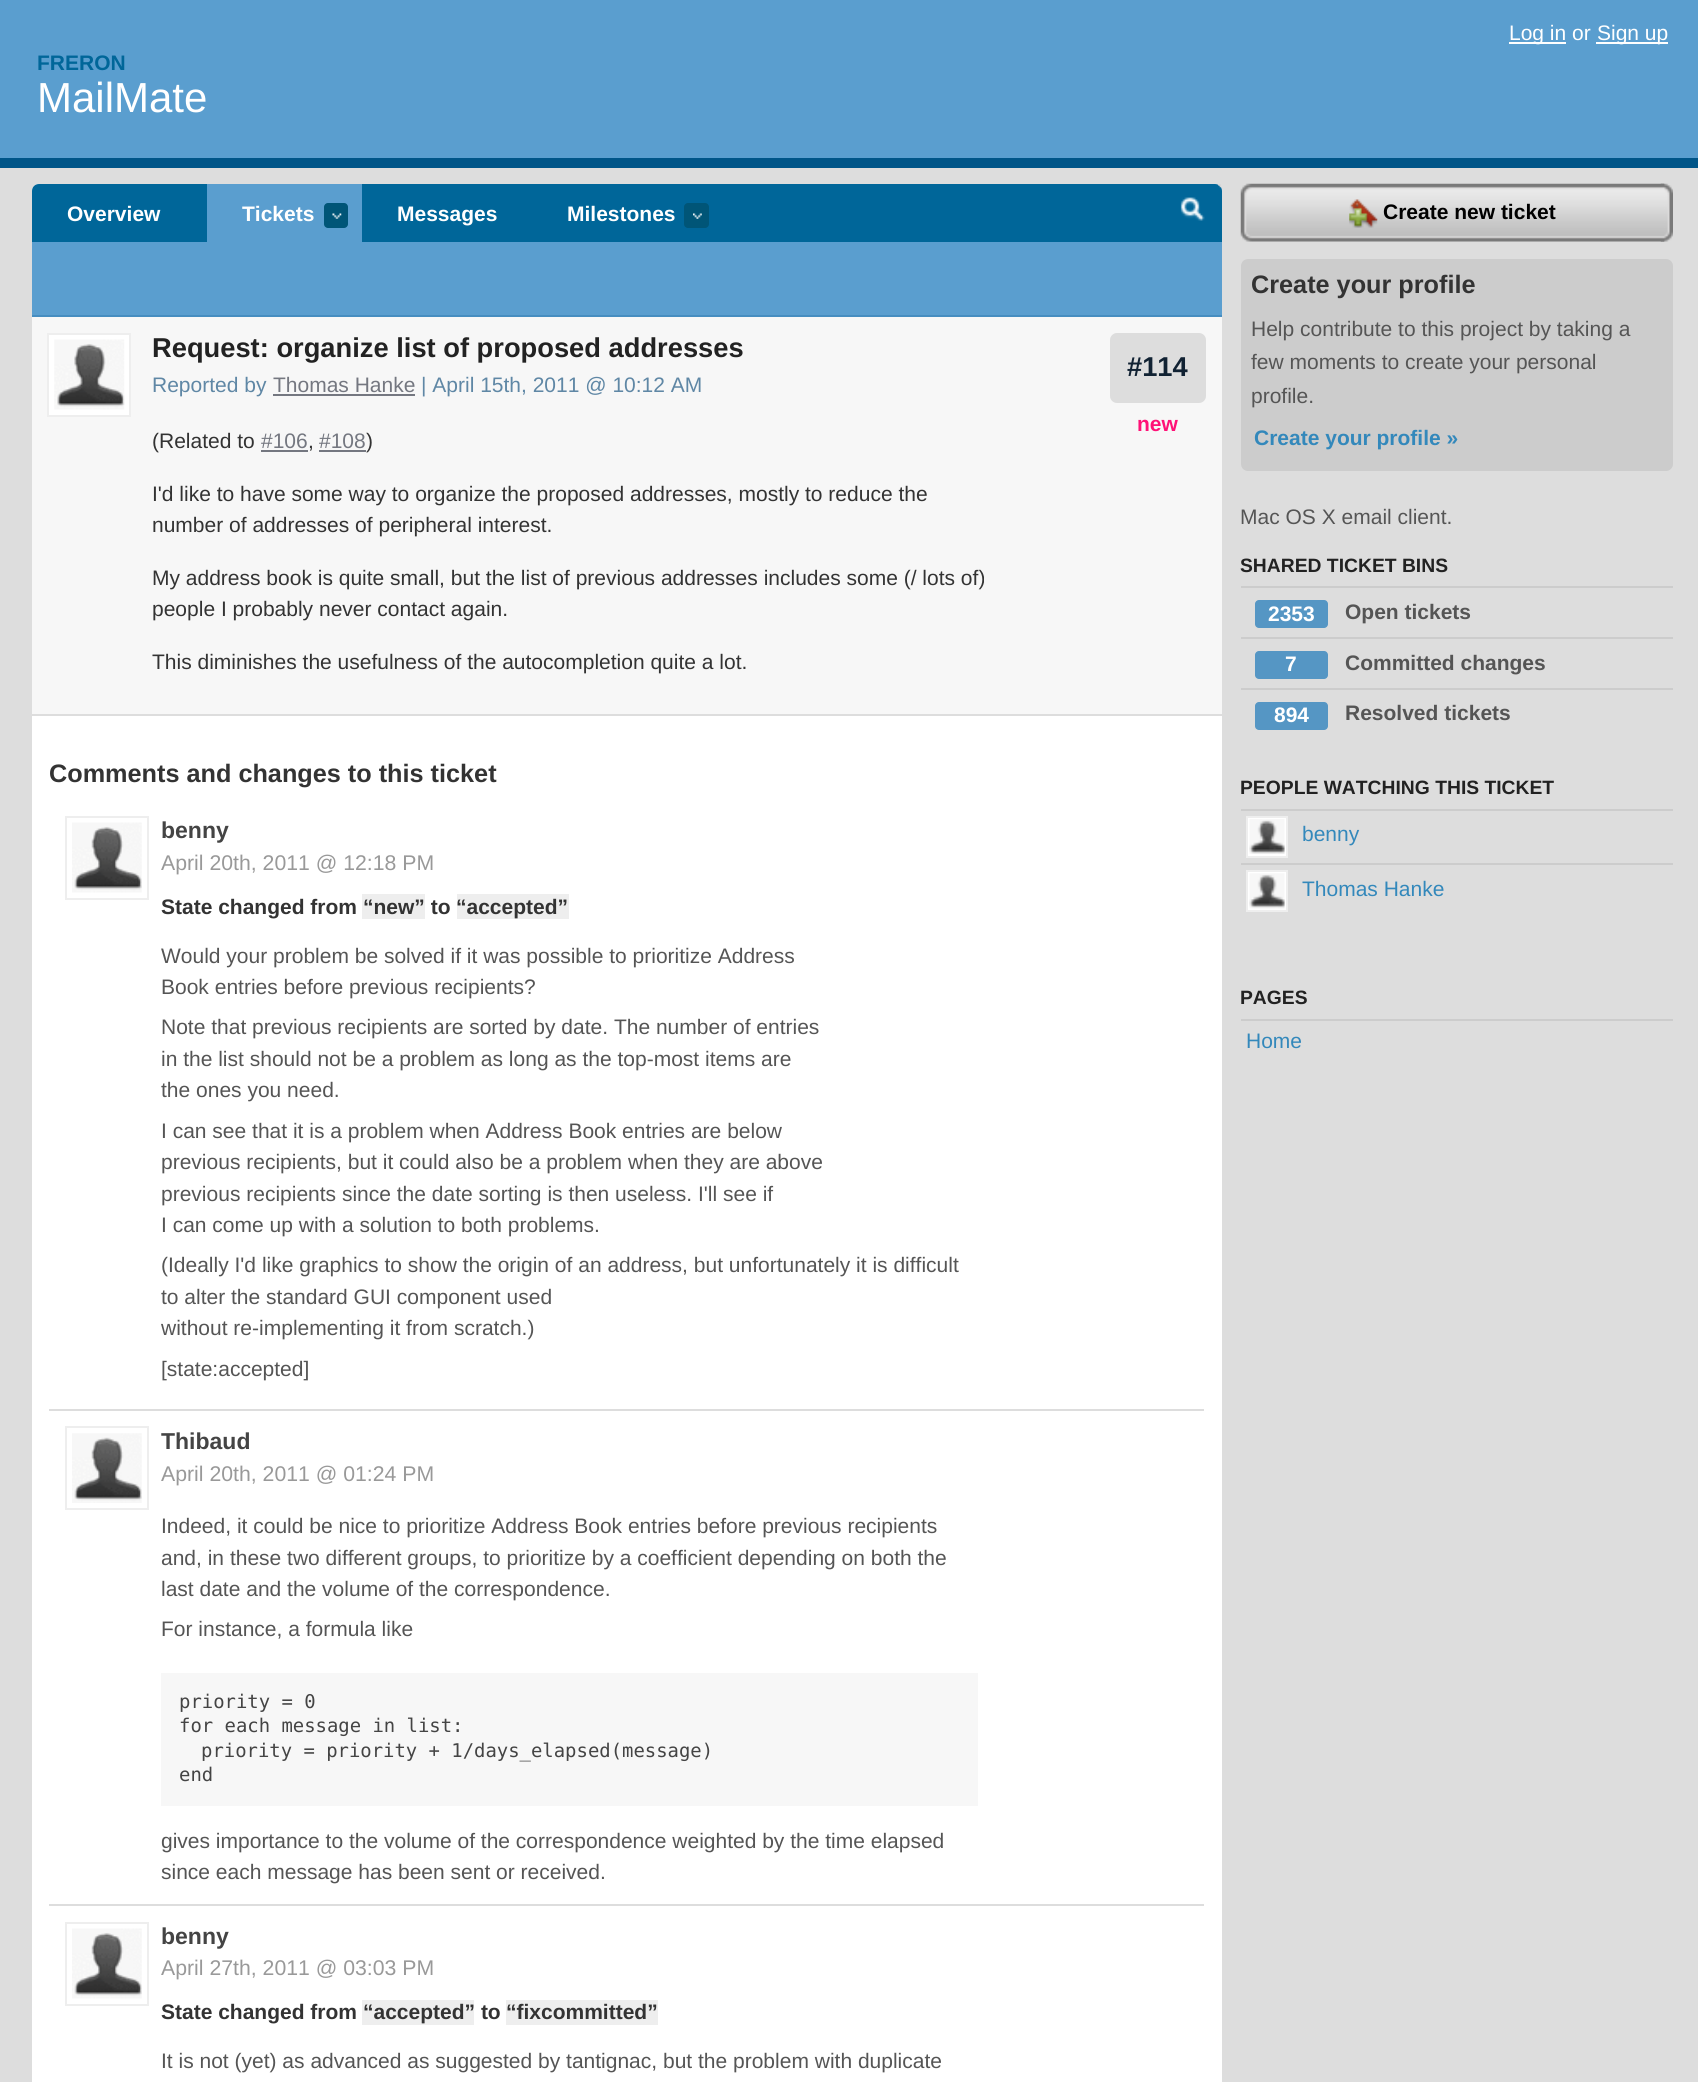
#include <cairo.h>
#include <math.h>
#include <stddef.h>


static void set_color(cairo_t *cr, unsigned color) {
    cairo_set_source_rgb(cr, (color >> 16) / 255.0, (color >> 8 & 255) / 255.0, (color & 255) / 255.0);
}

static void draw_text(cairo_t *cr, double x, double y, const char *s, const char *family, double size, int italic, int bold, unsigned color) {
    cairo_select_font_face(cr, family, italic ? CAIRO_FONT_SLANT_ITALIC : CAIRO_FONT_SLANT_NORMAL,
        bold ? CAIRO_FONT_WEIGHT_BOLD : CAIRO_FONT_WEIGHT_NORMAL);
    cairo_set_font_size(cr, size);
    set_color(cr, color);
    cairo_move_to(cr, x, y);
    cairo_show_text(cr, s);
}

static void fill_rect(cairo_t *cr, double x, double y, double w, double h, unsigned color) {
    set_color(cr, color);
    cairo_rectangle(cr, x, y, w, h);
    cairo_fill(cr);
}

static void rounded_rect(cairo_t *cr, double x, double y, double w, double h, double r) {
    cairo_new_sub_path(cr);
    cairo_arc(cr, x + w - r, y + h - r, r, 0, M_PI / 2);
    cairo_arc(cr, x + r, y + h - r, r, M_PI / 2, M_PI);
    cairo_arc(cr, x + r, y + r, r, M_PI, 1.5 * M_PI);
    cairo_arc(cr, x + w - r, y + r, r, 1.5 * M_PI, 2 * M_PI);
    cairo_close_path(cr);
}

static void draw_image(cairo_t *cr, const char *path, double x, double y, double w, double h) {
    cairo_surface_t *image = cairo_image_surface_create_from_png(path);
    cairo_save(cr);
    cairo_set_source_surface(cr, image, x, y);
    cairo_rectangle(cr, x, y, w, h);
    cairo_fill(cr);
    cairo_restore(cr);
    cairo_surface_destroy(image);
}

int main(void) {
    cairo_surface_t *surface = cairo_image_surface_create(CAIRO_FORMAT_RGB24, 1698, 2082);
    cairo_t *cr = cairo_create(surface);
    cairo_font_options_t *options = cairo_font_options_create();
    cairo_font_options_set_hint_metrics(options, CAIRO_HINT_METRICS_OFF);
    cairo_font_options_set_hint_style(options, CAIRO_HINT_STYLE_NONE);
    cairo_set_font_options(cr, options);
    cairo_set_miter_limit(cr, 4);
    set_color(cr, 0xDDDDDD);
    cairo_paint(cr);
    fill_rect(cr, 0, 0, 1698, 158, 0x5A9ECF);
    fill_rect(cr, 0, 158, 1698, 10, 0x005588);
    fill_rect(cr, 1509, 42, 57, 2, 0xFFFFFF);
    draw_text(cr, 1509, 40, "Log in or", "Liberation Sans", 21, 0, 0, 0xFFFFFF);
    fill_rect(cr, 1596, 42, 72, 2, 0xFFFFFF);
    draw_text(cr, 1597, 40, "Sign up", "Liberation Sans", 21, 0, 0, 0xFFFFFF);
    draw_text(cr, 37, 70, "FRERON", "Liberation Sans", 21, 0, 1, 0x006699);
    draw_text(cr, 37, 112, "MailMate", "Liberation Sans", 42, 0, 0, 0xFFFFFF);
    cairo_new_path(cr);
    cairo_move_to(cr, 39, 184);
    cairo_line_to(cr, 1215, 184);
    cairo_curve_to(cr, 1219, 184, 1222, 187, 1222, 191);
    cairo_line_to(cr, 1222, 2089);
    cairo_line_to(cr, 32, 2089);
    cairo_line_to(cr, 32, 191);
    cairo_curve_to(cr, 32, 187, 35, 184, 39, 184);
    cairo_close_path(cr);
    cairo_fill(cr);
    set_color(cr, 0x006699);
    cairo_new_path(cr);
    cairo_move_to(cr, 39, 184);
    cairo_line_to(cr, 1215, 184);
    cairo_curve_to(cr, 1219, 184, 1222, 187, 1222, 191);
    cairo_line_to(cr, 1222, 242);
    cairo_line_to(cr, 32, 242);
    cairo_line_to(cr, 32, 191);
    cairo_curve_to(cr, 32, 187, 35, 184, 39, 184);
    cairo_close_path(cr);
    cairo_fill(cr);
    draw_text(cr, 67, 221, "Overview", "Liberation Sans", 21, 0, 1, 0xFFFFFF);
    fill_rect(cr, 207, 184, 155, 58, 0x5A9ECF);
    draw_text(cr, 242, 221, "Tickets", "Liberation Sans", 21, 0, 1, 0xFFFFFF);
    set_color(cr, 0x005577);
    rounded_rect(cr, 324, 203, 24, 25, 4);
    cairo_fill(cr);
    draw_image(cr, "assets/img1.png", 332, 213, 10, 6);
    draw_text(cr, 397, 221, "Messages", "Liberation Sans", 21, 0, 1, 0xFFFFFF);
    draw_text(cr, 567, 221, "Milestones", "Liberation Sans", 21, 0, 1, 0xFFFFFF);
    set_color(cr, 0x005577);
    rounded_rect(cr, 684, 203, 25, 25, 4);
    cairo_fill(cr);
    draw_image(cr, "assets/img2.png", 693, 213, 9, 6);
    draw_image(cr, "assets/img3.png", 1218, 184, 3, 4);
    draw_image(cr, "assets/img4.png", 1180, 197, 25, 24);
    fill_rect(cr, 32, 242, 1190, 73, 0x5A9ECF);
    fill_rect(cr, 32, 315, 1190, 2, 0x468DC0);
    fill_rect(cr, 32, 317, 1190, 397, 0xF7F7F7);
    fill_rect(cr, 32, 714, 1190, 2, 0xDDDDDD);
    set_color(cr, 0xFFFFFF);
    cairo_rectangle(cr, 48, 334, 82, 82);
    cairo_fill_preserve(cr);
    set_color(cr, 0xEEEEEE);
    cairo_stroke(cr);
    draw_image(cr, "assets/img5.png", 54, 339, 71, 71);
    draw_text(cr, 152, 357, "Request: organize list of proposed addresses", "Liberation Sans", 27.3, 0, 1, 0x222222);
    draw_text(cr, 152, 392, "Reported by", "Liberation Sans", 21, 0, 0, 0x5F87A5);
    draw_text(cr, 273, 392, "Thomas Hanke", "Liberation Sans", 21, 0, 0, 0x747780);
    fill_rect(cr, 273, 394, 142, 2, 0x747780);
    draw_text(cr, 421, 392, "| April 15th, 2011 @ 10:12 AM", "Liberation Sans", 21, 0, 0, 0x5F87A5);
    draw_text(cr, 152, 448, "(Related to", "Liberation Sans", 21, 0, 0, 0x333333);
    draw_text(cr, 261, 448, "#106", "Liberation Sans", 21, 0, 0, 0x747780);
    fill_rect(cr, 261, 450, 47, 2, 0x747780);
    draw_text(cr, 308, 448, ",", "Liberation Sans", 21, 0, 0, 0x333333);
    draw_text(cr, 319, 448, "#108", "Liberation Sans", 21, 0, 0, 0x747780);
    fill_rect(cr, 319, 450, 47, 2, 0x747780);
    draw_text(cr, 366, 448, ")", "Liberation Sans", 21, 0, 0, 0x333333);
    draw_text(cr, 152, 501, "I'd like to have some way to organize the proposed addresses, mostly to reduce the", "Liberation Sans", 21, 0, 0, 0x333333);
    draw_text(cr, 152, 532, "number of addresses of peripheral interest.", "Liberation Sans", 21, 0, 0, 0x333333);
    draw_text(cr, 152, 585, "My address book is quite small, but the list of previous addresses includes some (/ lots of)", "Liberation Sans", 21, 0, 0, 0x333333);
    draw_text(cr, 152, 616, "people I probably never contact again.", "Liberation Sans", 21, 0, 0, 0x333333);
    draw_text(cr, 152, 669, "This diminishes the usefulness of the autocompletion quite a lot.", "Liberation Sans", 21, 0, 0, 0x333333);
    set_color(cr, 0xDDDDDD);
    rounded_rect(cr, 1110, 333, 96, 70, 7);
    cairo_fill(cr);
    draw_text(cr, 1127, 376, "#114", "Liberation Sans", 27.3, 0, 1, 0x112233);
    draw_text(cr, 1137, 431, "new", "Liberation Sans", 21, 0, 1, 0xFF1177);
    draw_text(cr, 49, 782, "Comments and changes to this ticket", "Liberation Sans", 25.25, 0, 1, 0x333333);
    fill_rect(cr, 49, 1409, 1155, 2, 0xDDDDDD);
    cairo_rectangle(cr, 66, 817, 82, 82);
    set_color(cr, 0xEEEEEE);
    cairo_stroke(cr);
    draw_image(cr, "assets/img6.png", 72, 822, 70, 71);
    draw_text(cr, 161, 838, "benny", "Liberation Sans", 23, 0, 1, 0x444444);
    draw_text(cr, 161, 870, "April 20th, 2011 @ 12:18 PM", "Liberation Sans", 21.25, 0, 0, 0x999999);
    draw_text(cr, 161, 914, "State changed from", "Liberation Sans", 21, 0, 1, 0x333333);
    fill_rect(cr, 362, 894, 63, 25, 0xEEEEEE);
    draw_text(cr, 363, 914, "“new” to", "Liberation Sans", 21, 0, 1, 0x333333);
    fill_rect(cr, 457, 894, 112, 25, 0xEEEEEE);
    draw_text(cr, 456, 914, "“accepted”", "Liberation Sans", 21, 0, 1, 0x333333);
    draw_text(cr, 161, 963, "Would your problem be solved if it was possible to prioritize Address", "Liberation Sans", 21, 0, 0, 0x555555);
    draw_text(cr, 161, 994, "Book entries before previous recipients?", "Liberation Sans", 21, 0, 0, 0x555555);
    draw_text(cr, 161, 1034, "Note that previous recipients are sorted by date. The number of entries", "Liberation Sans", 21, 0, 0, 0x555555);
    draw_text(cr, 161, 1066, "in the list should not be a problem as long as the top-most items are", "Liberation Sans", 21, 0, 0, 0x555555);
    draw_text(cr, 161, 1097, "the ones you need.", "Liberation Sans", 21, 0, 0, 0x555555);
    draw_text(cr, 161, 1138, "I can see that it is a problem when Address Book entries are below", "Liberation Sans", 21, 0, 0, 0x555555);
    draw_text(cr, 161, 1169, "previous recipients, but it could also be a problem when they are above", "Liberation Sans", 21, 0, 0, 0x555555);
    draw_text(cr, 161, 1201, "previous recipients since the date sorting is then useless. I'll see if", "Liberation Sans", 21, 0, 0, 0x555555);
    draw_text(cr, 161, 1232, "I can come up with a solution to both problems.", "Liberation Sans", 21, 0, 0, 0x555555);
    draw_text(cr, 161, 1272, "(Ideally I'd like graphics to show the origin of an address, but unfortunately it is difficult", "Liberation Sans", 21, 0, 0, 0x555555);
    draw_text(cr, 161, 1304, "to alter the standard GUI component used", "Liberation Sans", 21, 0, 0, 0x555555);
    draw_text(cr, 161, 1335, "without re-implementing it from scratch.)", "Liberation Sans", 21, 0, 0, 0x555555);
    draw_text(cr, 161, 1376, "[state:accepted]", "Liberation Sans", 21, 0, 0, 0x555555);
    fill_rect(cr, 49, 1904, 1155, 2, 0xDDDDDD);
    cairo_rectangle(cr, 66, 1427, 82, 82);
    set_color(cr, 0xEEEEEE);
    cairo_stroke(cr);
    draw_image(cr, "assets/img7.png", 72, 1433, 70, 70);
    draw_text(cr, 161, 1449, "Thibaud", "Liberation Sans", 23, 0, 1, 0x444444);
    draw_text(cr, 161, 1481, "April 20th, 2011 @ 01:24 PM", "Liberation Sans", 21.25, 0, 0, 0x999999);
    draw_text(cr, 161, 1533, "Indeed, it could be nice to prioritize Address Book entries before previous recipients", "Liberation Sans", 21, 0, 0, 0x555555);
    draw_text(cr, 161, 1565, "and, in these two different groups, to prioritize by a coefficient depending on both the", "Liberation Sans", 21, 0, 0, 0x555555);
    draw_text(cr, 161, 1596, "last date and the volume of the correspondence.", "Liberation Sans", 21, 0, 0, 0x555555);
    draw_text(cr, 161, 1636, "For instance, a formula like", "Liberation Sans", 21, 0, 0, 0x555555);
    fill_rect(cr, 161, 1673, 817, 133, 0xF7F7F7);
    draw_text(cr, 179, 1708, "priority = 0", "DejaVu Sans Mono", 18.9, 0, 0, 0x444444);
    draw_text(cr, 179, 1732, "for each message in list:", "DejaVu Sans Mono", 18.9, 0, 0, 0x444444);
    draw_text(cr, 201, 1757, "priority = priority + 1/days_elapsed(message)", "DejaVu Sans Mono", 18.9, 0, 0, 0x444444);
    draw_text(cr, 179, 1781, "end", "DejaVu Sans Mono", 18.9, 0, 0, 0x444444);
    draw_text(cr, 161, 1848, "gives importance to the volume of the correspondence weighted by the time elapsed", "Liberation Sans", 21, 0, 0, 0x555555);
    draw_text(cr, 161, 1879, "since each message has been sent or received.", "Liberation Sans", 21, 0, 0, 0x555555);
    cairo_rectangle(cr, 66, 1923, 82, 82);
    set_color(cr, 0xEEEEEE);
    cairo_stroke(cr);
    draw_image(cr, "assets/img8.png", 72, 1928, 70, 71);
    draw_text(cr, 161, 1944, "benny", "Liberation Sans", 23, 0, 1, 0x444444);
    draw_text(cr, 161, 1975, "April 27th, 2011 @ 03:03 PM", "Liberation Sans", 21.25, 0, 0, 0x999999);
    draw_text(cr, 161, 2019, "State changed from", "Liberation Sans", 21, 0, 1, 0x333333);
    fill_rect(cr, 362, 2000, 112, 25, 0xEEEEEE);
    draw_text(cr, 363, 2019, "“accepted” to", "Liberation Sans", 21, 0, 1, 0x333333);
    fill_rect(cr, 506, 2000, 152, 25, 0xEEEEEE);
    draw_text(cr, 506, 2019, "“fixcommitted”", "Liberation Sans", 21, 0, 1, 0x333333);
    draw_text(cr, 161, 2068, "It is not (yet) as advanced as suggested by tantignac, but the problem with duplicate", "Liberation Sans", 21, 0, 0, 0x555555);
    draw_image(cr, "assets/img9.png", 1660, 183, 13, 59);
    draw_image(cr, "assets/img10.png", 1240, 183, 425, 59);
    draw_image(cr, "assets/img11.png", 1349, 199, 29, 29);
    draw_text(cr, 1383, 219, "Create new ticket", "Liberation Sans", 21, 0, 1, 0x000000);
    set_color(cr, 0xCCCCCC);
    rounded_rect(cr, 1241, 259, 432, 212, 7);
    cairo_fill(cr);
    draw_text(cr, 1251, 293, "Create your profile", "Liberation Sans", 25.25, 0, 1, 0x333333);
    draw_text(cr, 1251, 336, "Help contribute to this project by taking a", "Liberation Sans", 21, 0, 0, 0x555555);
    draw_text(cr, 1251, 369, "few moments to create your personal", "Liberation Sans", 21, 0, 0, 0x555555);
    draw_text(cr, 1251, 403, "profile.", "Liberation Sans", 21, 0, 0, 0x555555);
    draw_text(cr, 1254, 445, "Create your profile »", "Liberation Sans", 21, 0, 1, 0x3388BB);
    draw_text(cr, 1240, 524, "Mac OS X email client.", "Liberation Sans", 21, 0, 0, 0x555555);
    draw_text(cr, 1240, 572, "SHARED TICKET BINS", "Liberation Sans", 19.3, 0, 1, 0x222222);
    fill_rect(cr, 1241, 586, 432, 2, 0xCCCCCC);
    set_color(cr, 0x5596C4);
    rounded_rect(cr, 1255, 600, 73, 28, 4);
    cairo_fill(cr);
    draw_text(cr, 1268, 621, "2353", "Liberation Sans", 21, 0, 1, 0xFFFFFF);
    draw_text(cr, 1345, 619, "Open tickets", "Liberation Sans", 21, 0, 1, 0x555555);
    fill_rect(cr, 1241, 637, 432, 2, 0xCCCCCC);
    set_color(cr, 0x5596C4);
    rounded_rect(cr, 1255, 651, 73, 28, 4);
    cairo_fill(cr);
    draw_text(cr, 1285, 671, "7", "Liberation Sans", 21, 0, 1, 0xFFFFFF);
    draw_text(cr, 1345, 670, "Committed changes", "Liberation Sans", 21, 0, 1, 0x555555);
    fill_rect(cr, 1241, 688, 432, 2, 0xCCCCCC);
    set_color(cr, 0x5596C4);
    rounded_rect(cr, 1255, 702, 73, 28, 4);
    cairo_fill(cr);
    draw_text(cr, 1274, 722, "894", "Liberation Sans", 21, 0, 1, 0xFFFFFF);
    draw_text(cr, 1345, 720, "Resolved tickets", "Liberation Sans", 21, 0, 1, 0x555555);
    draw_text(cr, 1240, 794, "PEOPLE WATCHING THIS TICKET", "Liberation Sans", 19.3, 0, 1, 0x222222);
    fill_rect(cr, 1241, 809, 432, 2, 0xCCCCCC);
    set_color(cr, 0xFFFFFF);
    cairo_rectangle(cr, 1247, 817, 40, 40);
    cairo_fill_preserve(cr);
    set_color(cr, 0xEEEEEE);
    cairo_stroke(cr);
    draw_image(cr, "assets/img12.png", 1249, 819, 36, 35);
    draw_text(cr, 1302, 841, "benny", "Liberation Sans", 21, 0, 0, 0x3388BB);
    fill_rect(cr, 1241, 863, 432, 2, 0xCCCCCC);
    set_color(cr, 0xFFFFFF);
    cairo_rectangle(cr, 1247, 871, 40, 40);
    cairo_fill_preserve(cr);
    set_color(cr, 0xEEEEEE);
    cairo_stroke(cr);
    draw_image(cr, "assets/img13.png", 1249, 873, 36, 36);
    draw_text(cr, 1302, 896, "Thomas Hanke", "Liberation Sans", 21, 0, 0, 0x3388BB);
    draw_text(cr, 1240, 1004, "PAGES", "Liberation Sans", 19.3, 0, 1, 0x222222);
    fill_rect(cr, 1241, 1019, 432, 2, 0xCCCCCC);
    draw_text(cr, 1246, 1048, "Home", "Liberation Sans", 21, 0, 0, 0x3388BB);
    cairo_surface_write_to_png(surface, "output.png");
    cairo_font_options_destroy(options);
    cairo_destroy(cr);
    cairo_surface_destroy(surface);
    return 0;
}
